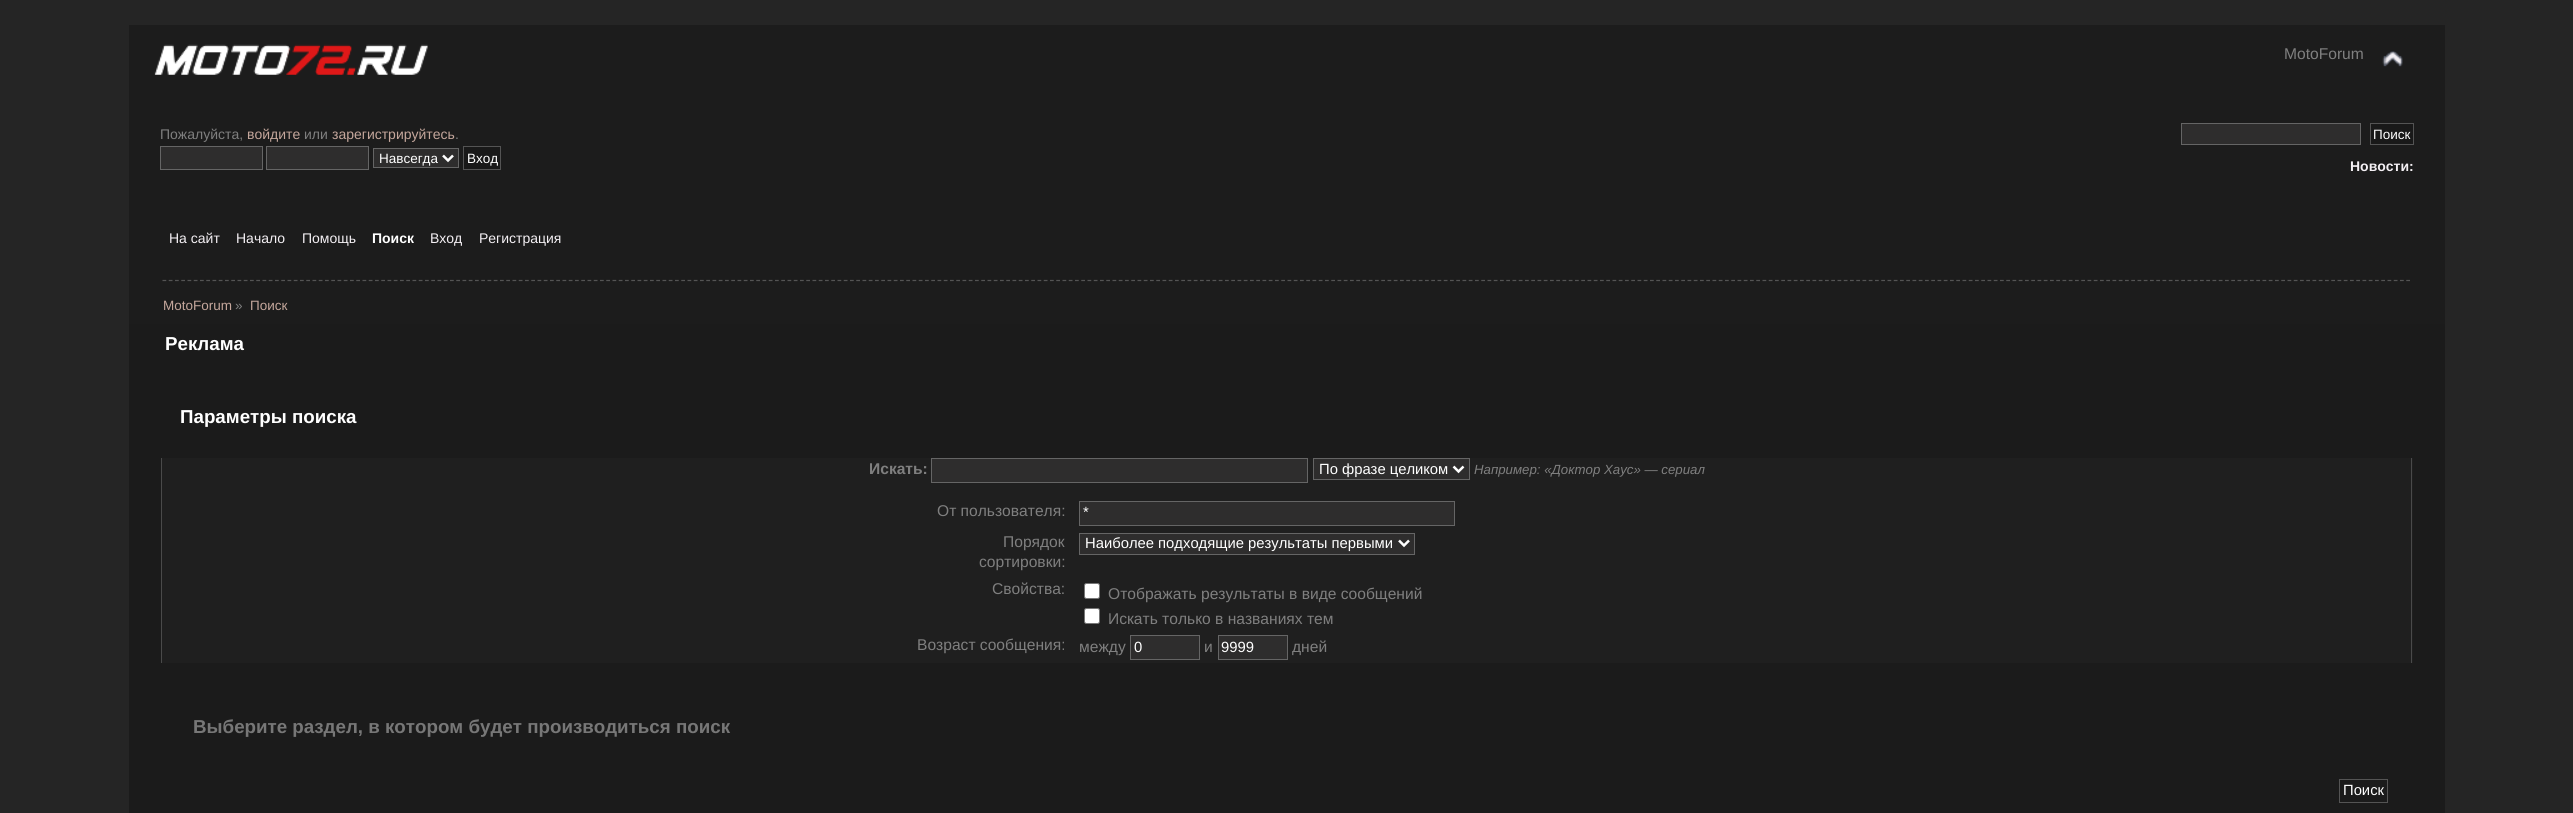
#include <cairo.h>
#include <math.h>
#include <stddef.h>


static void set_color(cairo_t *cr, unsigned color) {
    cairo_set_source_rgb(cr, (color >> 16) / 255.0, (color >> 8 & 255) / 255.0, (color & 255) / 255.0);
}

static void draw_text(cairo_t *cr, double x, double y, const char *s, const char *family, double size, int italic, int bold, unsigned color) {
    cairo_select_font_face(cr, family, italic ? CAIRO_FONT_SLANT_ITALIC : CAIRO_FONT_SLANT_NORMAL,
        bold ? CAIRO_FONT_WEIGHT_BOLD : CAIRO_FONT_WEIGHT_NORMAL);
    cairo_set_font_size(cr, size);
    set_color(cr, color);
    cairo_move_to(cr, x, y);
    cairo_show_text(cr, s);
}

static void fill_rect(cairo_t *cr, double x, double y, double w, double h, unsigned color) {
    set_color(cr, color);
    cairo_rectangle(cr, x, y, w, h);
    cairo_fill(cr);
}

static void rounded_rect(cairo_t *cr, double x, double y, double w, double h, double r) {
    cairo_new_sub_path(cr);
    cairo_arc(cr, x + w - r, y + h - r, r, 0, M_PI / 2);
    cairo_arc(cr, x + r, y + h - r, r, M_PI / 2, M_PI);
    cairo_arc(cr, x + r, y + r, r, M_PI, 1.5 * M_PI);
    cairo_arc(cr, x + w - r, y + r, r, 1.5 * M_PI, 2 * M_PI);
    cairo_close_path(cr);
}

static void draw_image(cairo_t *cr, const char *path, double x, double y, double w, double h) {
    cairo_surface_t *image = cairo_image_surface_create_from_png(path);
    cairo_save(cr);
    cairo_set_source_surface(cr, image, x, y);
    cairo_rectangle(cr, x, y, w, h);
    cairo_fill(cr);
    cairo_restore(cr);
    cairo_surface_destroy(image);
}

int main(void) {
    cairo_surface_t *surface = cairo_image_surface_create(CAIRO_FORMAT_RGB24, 2573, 813);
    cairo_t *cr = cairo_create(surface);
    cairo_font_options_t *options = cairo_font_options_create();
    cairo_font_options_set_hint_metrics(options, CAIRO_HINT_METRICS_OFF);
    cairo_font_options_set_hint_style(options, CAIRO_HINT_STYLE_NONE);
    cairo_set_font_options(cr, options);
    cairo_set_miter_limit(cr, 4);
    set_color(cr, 0x252525);
    cairo_paint(cr);
    fill_rect(cr, 129, 25, 2316, 299, 0x1C1C1C);
    draw_image(cr, "assets/img1.png", 154, 44, 274, 31);
    draw_text(cr, 2284, 59, "MotoForum", "Liberation Sans", 15.6, 0, 0, 0x7F7F7F);
    draw_image(cr, "assets/img2.png", 2382, 51, 21, 16);
    draw_text(cr, 160, 139, "Пожалуйста,", "Liberation Sans", 14, 0, 0, 0x7F7F7F);
    draw_text(cr, 247, 139, "войдите", "Liberation Sans", 14, 0, 0, 0xC5A79C);
    draw_text(cr, 304, 139, "или", "Liberation Sans", 14, 0, 0, 0x7F7F7F);
    draw_text(cr, 332, 139, "зарегистрируйтесь", "Liberation Sans", 14, 0, 0, 0xC5A79C);
    draw_text(cr, 455, 139, ".", "Liberation Sans", 14, 0, 0, 0x7F7F7F);
    set_color(cr, 0x2E2D2D);
    cairo_rectangle(cr, 160.5, 146.5, 102, 23);
    cairo_fill_preserve(cr);
    set_color(cr, 0x656565);
    cairo_set_line_width(cr, 1);
    cairo_stroke(cr);
    set_color(cr, 0x2E2D2D);
    cairo_rectangle(cr, 266.5, 146.5, 102, 23);
    cairo_fill_preserve(cr);
    set_color(cr, 0x656565);
    cairo_stroke(cr);
    set_color(cr, 0x2E2D2D);
    cairo_rectangle(cr, 373.5, 148.5, 85, 19);
    cairo_fill_preserve(cr);
    set_color(cr, 0x656565);
    cairo_stroke(cr);
    cairo_new_path(cr);
    cairo_move_to(cr, 443, 155.5);
    cairo_line_to(cr, 448, 160.5);
    cairo_line_to(cr, 453, 155.5);
    set_color(cr, 0xFFFFFF);
    cairo_set_line_width(cr, 2.5);
    cairo_stroke(cr);
    draw_text(cr, 379, 163, "Навсегда", "Liberation Sans", 13.5, 0, 0, 0xFFFFFF);
    set_color(cr, 0x191919);
    cairo_rectangle(cr, 463.5, 146.5, 37, 23);
    cairo_fill_preserve(cr);
    set_color(cr, 0x545454);
    cairo_set_line_width(cr, 1);
    cairo_stroke(cr);
    draw_text(cr, 467, 163, "Вход", "Liberation Sans", 13.5, 0, 0, 0xFFFFFF);
    set_color(cr, 0x2E2D2D);
    cairo_rectangle(cr, 2181.5, 123.5, 179, 21);
    cairo_fill_preserve(cr);
    set_color(cr, 0x656565);
    cairo_stroke(cr);
    set_color(cr, 0x191919);
    cairo_rectangle(cr, 2370.5, 123.5, 43, 21);
    cairo_fill_preserve(cr);
    set_color(cr, 0x545454);
    cairo_stroke(cr);
    draw_text(cr, 2373, 139, "Поиск", "Liberation Sans", 13.5, 0, 0, 0xFFFFFF);
    draw_text(cr, 2350, 171, "Новости:", "Liberation Sans", 14, 0, 1, 0xF4F0F4);
    draw_text(cr, 169, 243, "На сайт", "Liberation Sans", 14, 0, 0, 0xF4F0F4);
    draw_text(cr, 236, 243, "Начало", "Liberation Sans", 14, 0, 0, 0xF4F0F4);
    draw_text(cr, 302, 243, "Помощь", "Liberation Sans", 14, 0, 0, 0xF4F0F4);
    draw_text(cr, 372, 243, "Поиск", "Liberation Sans", 14, 0, 1, 0xFFFFFF);
    draw_text(cr, 430, 243, "Вход", "Liberation Sans", 14, 0, 0, 0xF4F0F4);
    draw_text(cr, 479, 243, "Регистрация", "Liberation Sans", 14, 0, 0, 0xF4F0F4);
    cairo_new_path(cr);
    cairo_move_to(cr, 162.5, 280.5);
    cairo_line_to(cr, 2411, 280.5);
    set_color(cr, 0x545454);
    cairo_set_line_width(cr, 1.2);
    cairo_set_dash(cr, (double[]){3.75, 2.5}, 2, 0);
    cairo_stroke(cr);
    draw_text(cr, 163, 310, "MotoForum", "Liberation Sans", 13.5, 0, 0, 0xC5A79C);
    draw_text(cr, 235, 310, "»", "Liberation Sans", 13.5, 0, 0, 0x7F7F7F);
    draw_text(cr, 250, 310, "Поиск", "Liberation Sans", 13.5, 0, 0, 0xC5A79C);
    fill_rect(cr, 129, 324, 2316, 489, 0x1B1B1B);
    draw_text(cr, 165, 350, "Реклама", "Liberation Sans", 18.75, 0, 1, 0xFFFFFF);
    draw_text(cr, 180, 423, "Параметры поиска", "Liberation Sans", 18.75, 0, 1, 0xFFFFFF);
    fill_rect(cr, 162, 458, 2251, 205, 0x1F1F1F);
    fill_rect(cr, 2411, 458, 1, 205, 0x4A4A4A);
    fill_rect(cr, 161, 458, 1, 205, 0x4A4A4A);
    draw_text(cr, 869, 474, "Искать:", "Liberation Sans", 15.6, 0, 1, 0x7F7F7F);
    set_color(cr, 0x2E2D2D);
    cairo_rectangle(cr, 931.5, 458.5, 376, 24);
    cairo_fill_preserve(cr);
    set_color(cr, 0x656565);
    cairo_set_line_width(cr, 1);
    cairo_set_dash(cr, NULL, 0, 0);
    cairo_stroke(cr);
    set_color(cr, 0x2E2D2D);
    cairo_rectangle(cr, 1313.5, 458.5, 156, 21);
    cairo_fill_preserve(cr);
    set_color(cr, 0x656565);
    cairo_stroke(cr);
    cairo_new_path(cr);
    cairo_move_to(cr, 1453.5, 466.5);
    cairo_line_to(cr, 1458.5, 471.5);
    cairo_line_to(cr, 1463.5, 466.5);
    set_color(cr, 0xFFFFFF);
    cairo_set_line_width(cr, 2.5);
    cairo_stroke(cr);
    draw_text(cr, 1319, 474, "По фразе целиком", "Liberation Sans", 14.8, 0, 0, 0xFFFFFF);
    draw_text(cr, 1474, 474, "Например: «Доктор Хаус» — сериал", "Liberation Sans", 13.25, 1, 0, 0x7F7F7F);
    draw_text(cr, 937, 516, "От пользователя:", "Liberation Sans", 15.6, 0, 0, 0x7F7F7F);
    set_color(cr, 0x2E2D2D);
    cairo_rectangle(cr, 1079.5, 501.5, 375, 24);
    cairo_fill_preserve(cr);
    set_color(cr, 0x656565);
    cairo_set_line_width(cr, 1);
    cairo_stroke(cr);
    draw_text(cr, 1083, 517, "*", "Liberation Sans", 14.8, 0, 0, 0xFFFFFF);
    draw_text(cr, 1003, 547, "Порядок", "Liberation Sans", 15.6, 0, 0, 0x7F7F7F);
    draw_text(cr, 979, 567, "сортировки:", "Liberation Sans", 15.6, 0, 0, 0x7F7F7F);
    set_color(cr, 0x2E2D2D);
    cairo_rectangle(cr, 1079.5, 533.5, 335, 21);
    cairo_fill_preserve(cr);
    set_color(cr, 0x656565);
    cairo_stroke(cr);
    cairo_new_path(cr);
    cairo_move_to(cr, 1399, 540.5);
    cairo_line_to(cr, 1404, 545.5);
    cairo_line_to(cr, 1409, 540.5);
    set_color(cr, 0xFFFFFF);
    cairo_set_line_width(cr, 2.5);
    cairo_stroke(cr);
    draw_text(cr, 1085, 548, "Наиболее подходящие результаты первыми", "Liberation Sans", 14.8, 0, 0, 0xFFFFFF);
    draw_text(cr, 992, 594, "Свойства:", "Liberation Sans", 15.6, 0, 0, 0x7F7F7F);
    set_color(cr, 0xFFFFFF);
    rounded_rect(cr, 1084.5, 583.5, 15, 15, 2);
    cairo_fill_preserve(cr);
    set_color(cr, 0x767676);
    cairo_set_line_width(cr, 1);
    cairo_stroke(cr);
    draw_text(cr, 1108, 599, "Отображать результаты в виде сообщений", "Liberation Sans", 15.6, 0, 0, 0x7F7F7F);
    set_color(cr, 0xFFFFFF);
    rounded_rect(cr, 1084.5, 608.5, 15, 15, 2);
    cairo_fill_preserve(cr);
    set_color(cr, 0x767676);
    cairo_stroke(cr);
    draw_text(cr, 1108, 624, "Искать только в названиях тем", "Liberation Sans", 15.6, 0, 0, 0x7F7F7F);
    draw_text(cr, 917, 650, "Возраст сообщения:", "Liberation Sans", 15.6, 0, 0, 0x7F7F7F);
    draw_text(cr, 1079, 652, "между", "Liberation Sans", 15.6, 0, 0, 0x7F7F7F);
    set_color(cr, 0x2E2D2D);
    cairo_rectangle(cr, 1130.5, 635.5, 69, 24);
    cairo_fill_preserve(cr);
    set_color(cr, 0x656565);
    cairo_stroke(cr);
    draw_text(cr, 1134, 652, "0", "Liberation Sans", 14.8, 0, 0, 0xFFFFFF);
    draw_text(cr, 1204, 652, "и", "Liberation Sans", 15.6, 0, 0, 0x7F7F7F);
    set_color(cr, 0x2E2D2D);
    cairo_rectangle(cr, 1218.5, 635.5, 69, 24);
    cairo_fill_preserve(cr);
    set_color(cr, 0x656565);
    cairo_stroke(cr);
    draw_text(cr, 1221, 652, "9999", "Liberation Sans", 14.8, 0, 0, 0xFFFFFF);
    draw_text(cr, 1292, 652, "дней", "Liberation Sans", 15.6, 0, 0, 0x7F7F7F);
    draw_text(cr, 193, 733, "Выберите раздел, в котором будет производиться поиск", "Liberation Sans", 18.75, 0, 1, 0x777777);
    cairo_rectangle(cr, 2339.5, 779.5, 48, 23);
    set_color(cr, 0x545454);
    cairo_stroke(cr);
    draw_text(cr, 2343, 795, "Поиск", "Liberation Sans", 14.8, 0, 0, 0xFFFFFF);
    cairo_surface_write_to_png(surface, "output.png");
    cairo_font_options_destroy(options);
    cairo_destroy(cr);
    cairo_surface_destroy(surface);
    return 0;
}
